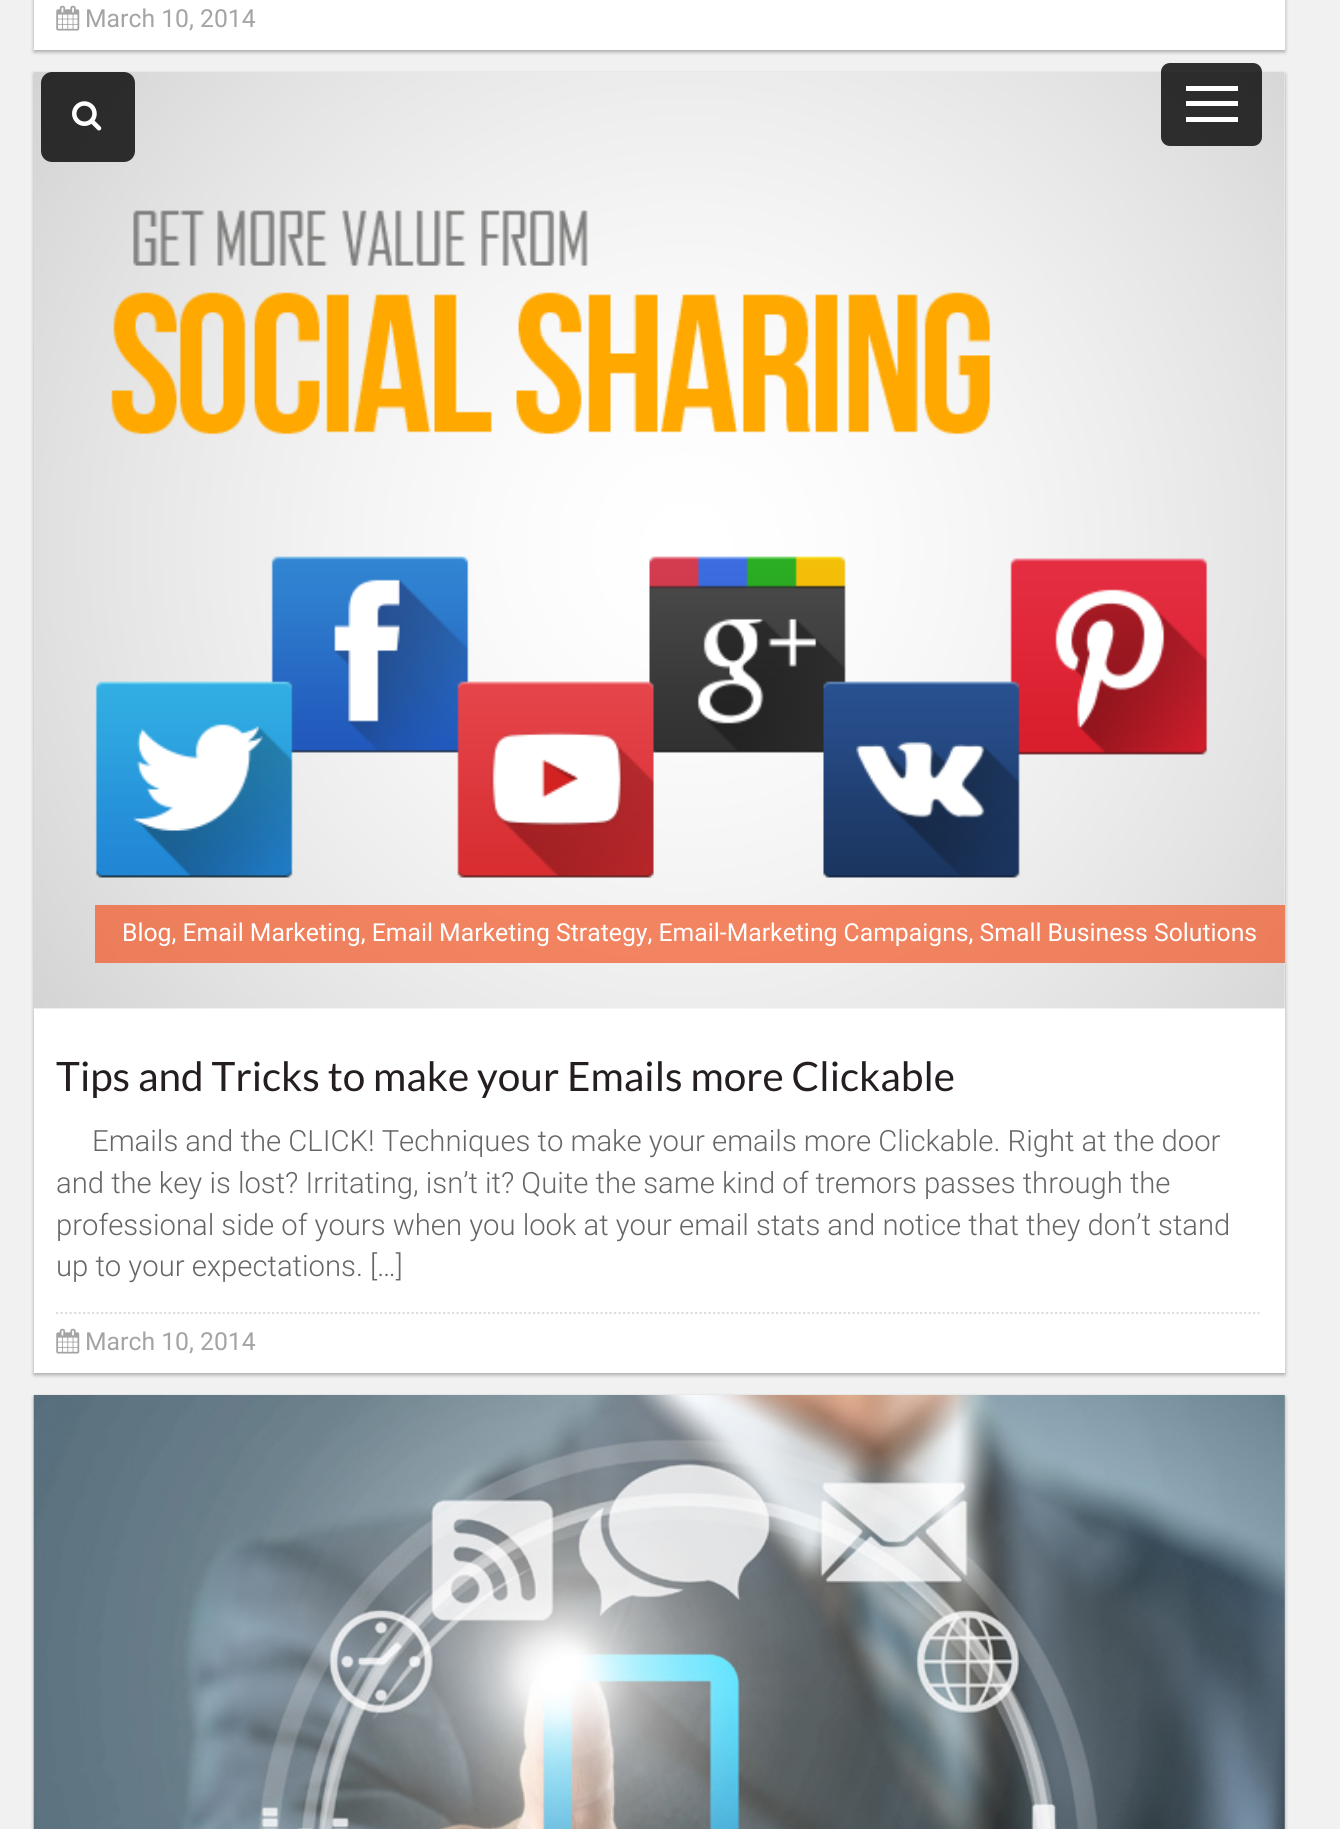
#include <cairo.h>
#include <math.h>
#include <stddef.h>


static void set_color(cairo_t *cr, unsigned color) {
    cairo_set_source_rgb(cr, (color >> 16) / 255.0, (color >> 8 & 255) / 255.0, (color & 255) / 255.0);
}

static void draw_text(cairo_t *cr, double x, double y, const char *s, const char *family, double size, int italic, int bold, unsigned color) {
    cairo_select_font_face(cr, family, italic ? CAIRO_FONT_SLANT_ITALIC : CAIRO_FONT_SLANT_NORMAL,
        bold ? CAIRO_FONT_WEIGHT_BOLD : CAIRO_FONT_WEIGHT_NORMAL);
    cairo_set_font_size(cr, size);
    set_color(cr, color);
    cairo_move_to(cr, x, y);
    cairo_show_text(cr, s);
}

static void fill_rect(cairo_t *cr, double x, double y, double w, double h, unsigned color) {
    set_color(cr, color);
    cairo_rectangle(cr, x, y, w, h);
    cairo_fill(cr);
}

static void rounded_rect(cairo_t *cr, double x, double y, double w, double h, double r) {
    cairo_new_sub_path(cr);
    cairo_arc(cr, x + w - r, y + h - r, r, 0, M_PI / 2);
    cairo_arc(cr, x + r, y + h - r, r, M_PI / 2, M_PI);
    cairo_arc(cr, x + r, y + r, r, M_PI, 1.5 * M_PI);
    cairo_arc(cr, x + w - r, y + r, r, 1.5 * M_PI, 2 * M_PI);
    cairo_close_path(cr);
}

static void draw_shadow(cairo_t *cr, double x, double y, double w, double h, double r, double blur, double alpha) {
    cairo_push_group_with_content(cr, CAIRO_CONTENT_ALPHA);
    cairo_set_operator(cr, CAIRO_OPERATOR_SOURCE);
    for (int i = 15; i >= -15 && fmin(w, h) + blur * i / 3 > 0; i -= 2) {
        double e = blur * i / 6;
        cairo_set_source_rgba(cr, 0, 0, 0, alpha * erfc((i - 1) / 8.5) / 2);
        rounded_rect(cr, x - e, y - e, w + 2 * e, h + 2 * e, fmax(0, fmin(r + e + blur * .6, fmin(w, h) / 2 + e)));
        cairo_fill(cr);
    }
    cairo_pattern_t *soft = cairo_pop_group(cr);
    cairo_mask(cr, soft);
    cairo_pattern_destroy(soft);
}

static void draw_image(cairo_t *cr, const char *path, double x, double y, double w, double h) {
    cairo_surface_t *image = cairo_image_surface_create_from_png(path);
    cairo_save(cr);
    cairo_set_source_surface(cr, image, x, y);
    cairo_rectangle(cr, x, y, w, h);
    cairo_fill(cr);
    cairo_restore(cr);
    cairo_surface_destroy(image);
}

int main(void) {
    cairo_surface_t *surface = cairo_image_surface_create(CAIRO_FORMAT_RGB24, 1340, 1829);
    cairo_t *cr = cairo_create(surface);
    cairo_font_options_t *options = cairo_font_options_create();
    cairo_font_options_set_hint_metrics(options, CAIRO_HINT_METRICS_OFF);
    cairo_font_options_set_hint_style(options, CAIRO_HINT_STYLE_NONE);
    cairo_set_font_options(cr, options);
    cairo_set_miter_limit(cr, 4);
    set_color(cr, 0xF1F1F1);
    cairo_paint(cr);
    set_color(cr, 0x000000);
    draw_shadow(cr, 34, -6, 1251, 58, 0, 2, 0.3);
    fill_rect(cr, 34, 0, 1251, 50, 0xFFFFFF);
    draw_image(cr, "assets/img1.png", 56, 5, 24, 26);
    draw_text(cr, 85, 27, "March 10, 2014", "Roboto", 24.75, 0, 0, 0xA4A4A4);
    set_color(cr, 0x000000);
    draw_shadow(cr, 34, 74, 1251, 1301, 0, 2, 0.3);
    fill_rect(cr, 34, 72, 1251, 1301, 0xFFFFFF);
    draw_image(cr, "assets/img2.png", 33, 72, 1252, 938);
    cairo_set_source_rgba(cr, 0.949, 0.337, 0.145, 0.7);
    cairo_rectangle(cr, 95, 905, 1190, 58);
    cairo_fill(cr);
    draw_text(cr, 122, 941, "Blog, Email Marketing, Email Marketing Strategy, Email-Marketing Campaigns, Small Business Solutions", "Roboto", 24.75, 0, 0, 0xFFFFFF);
    draw_text(cr, 56, 1091, "Tips and Tricks to make your Emails more Clickable", "Lato", 40.5, 0, 0, 0x241E20);
    draw_text(cr, 92, 1151, "Emails and the CLICK! Techniques to make your emails more Clickable. Right at the door", "Roboto Light", 29.25, 0, 0, 0x666666);
    draw_text(cr, 56, 1193, "and the key is lost? Irritating, isn’t it? Quite the same kind of tremors passes through the", "Roboto Light", 29.25, 0, 0, 0x666666);
    draw_text(cr, 56, 1235, "professional side of yours when you look at your email stats and notice that they don’t stand", "Roboto Light", 29.25, 0, 0, 0x666666);
    draw_text(cr, 56, 1276, "up to your expectations. […]", "Roboto Light", 29.25, 0, 0, 0x666666);
    cairo_new_path(cr);
    cairo_move_to(cr, 56, 1313);
    cairo_line_to(cr, 1262, 1313);
    set_color(cr, 0xDDDEE0);
    cairo_set_line_width(cr, 2.2);
    cairo_set_dash(cr, (double[]){2.25, 2.25}, 2, 0);
    cairo_stroke(cr);
    draw_image(cr, "assets/img1.png", 56, 1328, 24, 26);
    draw_text(cr, 85, 1350, "March 10, 2014", "Roboto", 24.75, 0, 0, 0xA4A4A4);
    set_color(cr, 0x000000);
    draw_shadow(cr, 34, 1397, 1251, 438, 0, 2, 0.3);
    draw_image(cr, "assets/img3.png", 33, 1395, 1252, 434);
    cairo_set_source_rgba(cr, 0, 0, 0, 0.8);
    rounded_rect(cr, 41, 72, 94, 90, 11);
    cairo_fill(cr);
    draw_image(cr, "assets/img4.png", 72, 101, 30, 30);
    rounded_rect(cr, 1161, 63, 101, 83, 9);
    cairo_fill(cr);
    fill_rect(cr, 1186, 86, 52, 5, 0xFFFFFF);
    fill_rect(cr, 1186, 101, 52, 5, 0xFFFFFF);
    fill_rect(cr, 1186, 117, 52, 5, 0xFFFFFF);
    cairo_surface_write_to_png(surface, "output.png");
    cairo_font_options_destroy(options);
    cairo_destroy(cr);
    cairo_surface_destroy(surface);
    return 0;
}
